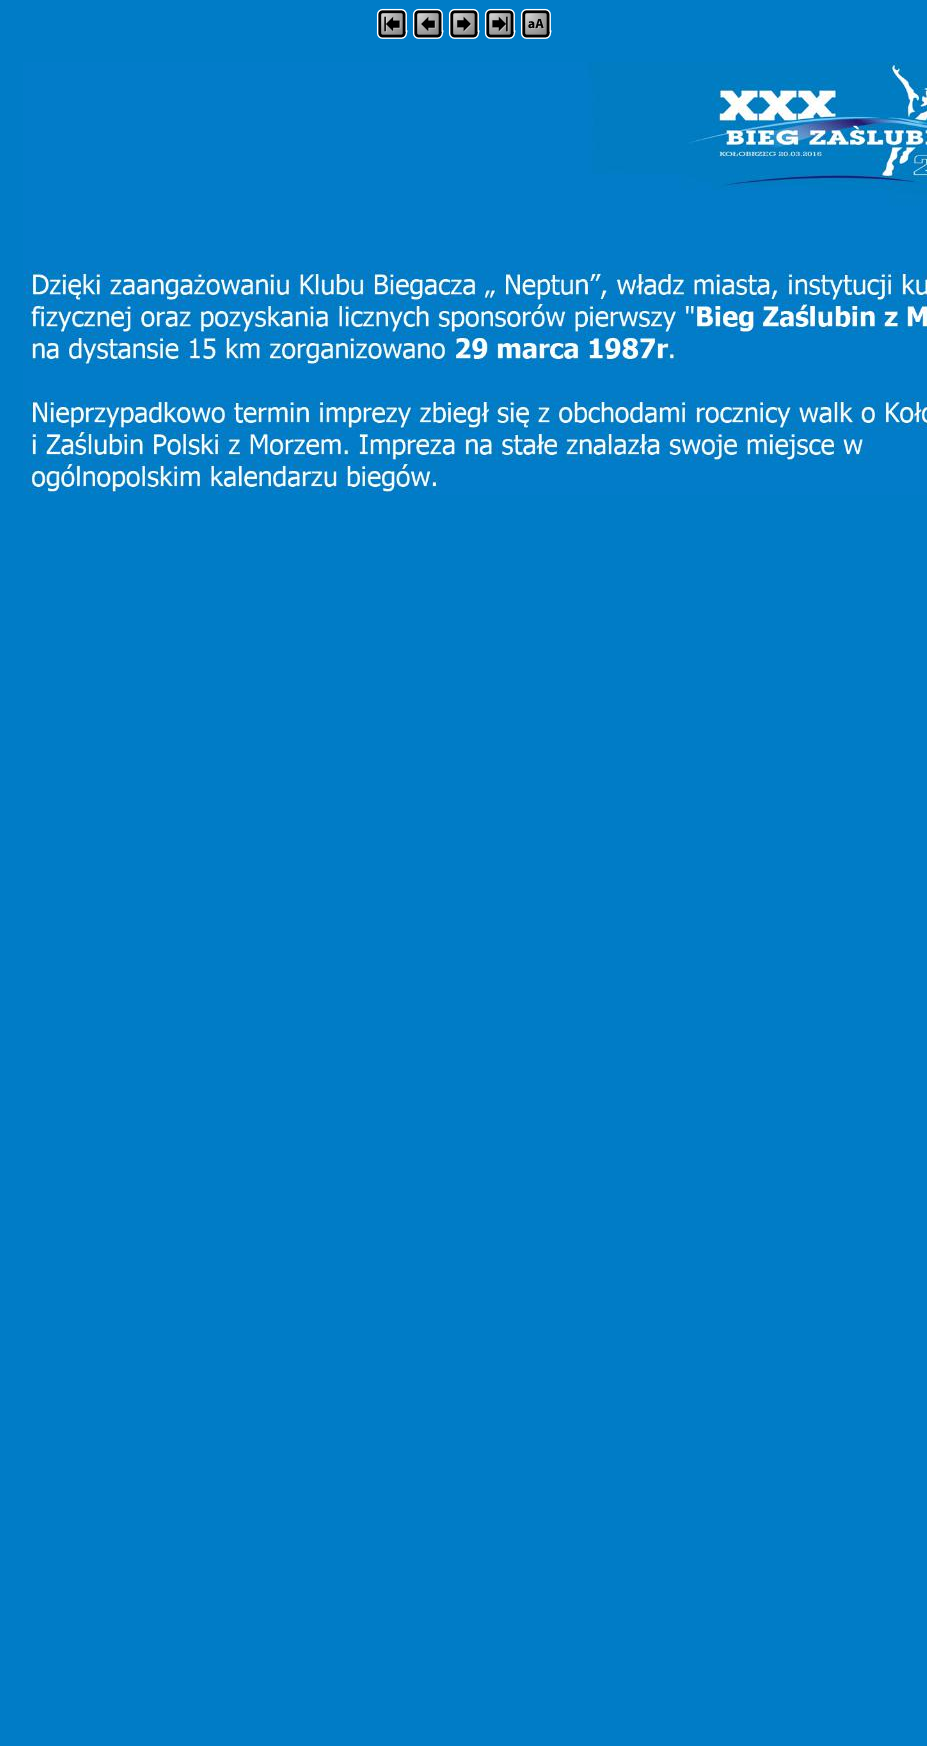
#include <cairo.h>
#include <math.h>
#include <stddef.h>


static void set_color(cairo_t *cr, unsigned color) {
    cairo_set_source_rgb(cr, (color >> 16) / 255.0, (color >> 8 & 255) / 255.0, (color & 255) / 255.0);
}

static void draw_image(cairo_t *cr, const char *path, double x, double y, double w, double h) {
    cairo_surface_t *image = cairo_image_surface_create_from_png(path);
    cairo_save(cr);
    cairo_set_source_surface(cr, image, x, y);
    cairo_rectangle(cr, x, y, w, h);
    cairo_fill(cr);
    cairo_restore(cr);
    cairo_surface_destroy(image);
}

int main(void) {
    cairo_surface_t *surface = cairo_image_surface_create(CAIRO_FORMAT_RGB24, 927, 1746);
    cairo_t *cr = cairo_create(surface);
    cairo_font_options_t *options = cairo_font_options_create();
    cairo_font_options_set_hint_metrics(options, CAIRO_HINT_METRICS_OFF);
    cairo_font_options_set_hint_style(options, CAIRO_HINT_STYLE_NONE);
    cairo_set_font_options(cr, options);
    cairo_set_miter_limit(cr, 4);
    set_color(cr, 0x007CC7);
    cairo_paint(cr);
    draw_image(cr, "assets/img1.png", 376, 8, 32, 31);
    draw_image(cr, "assets/img2.png", 412, 8, 32, 31);
    draw_image(cr, "assets/img3.png", 448, 8, 32, 31);
    draw_image(cr, "assets/img4.png", 484, 8, 32, 31);
    draw_image(cr, "assets/img5.png", 520, 8, 32, 31);
    draw_image(cr, "assets/img6.png", 23, 62, 904, 433);
    cairo_surface_write_to_png(surface, "output.png");
    cairo_font_options_destroy(options);
    cairo_destroy(cr);
    cairo_surface_destroy(surface);
    return 0;
}
